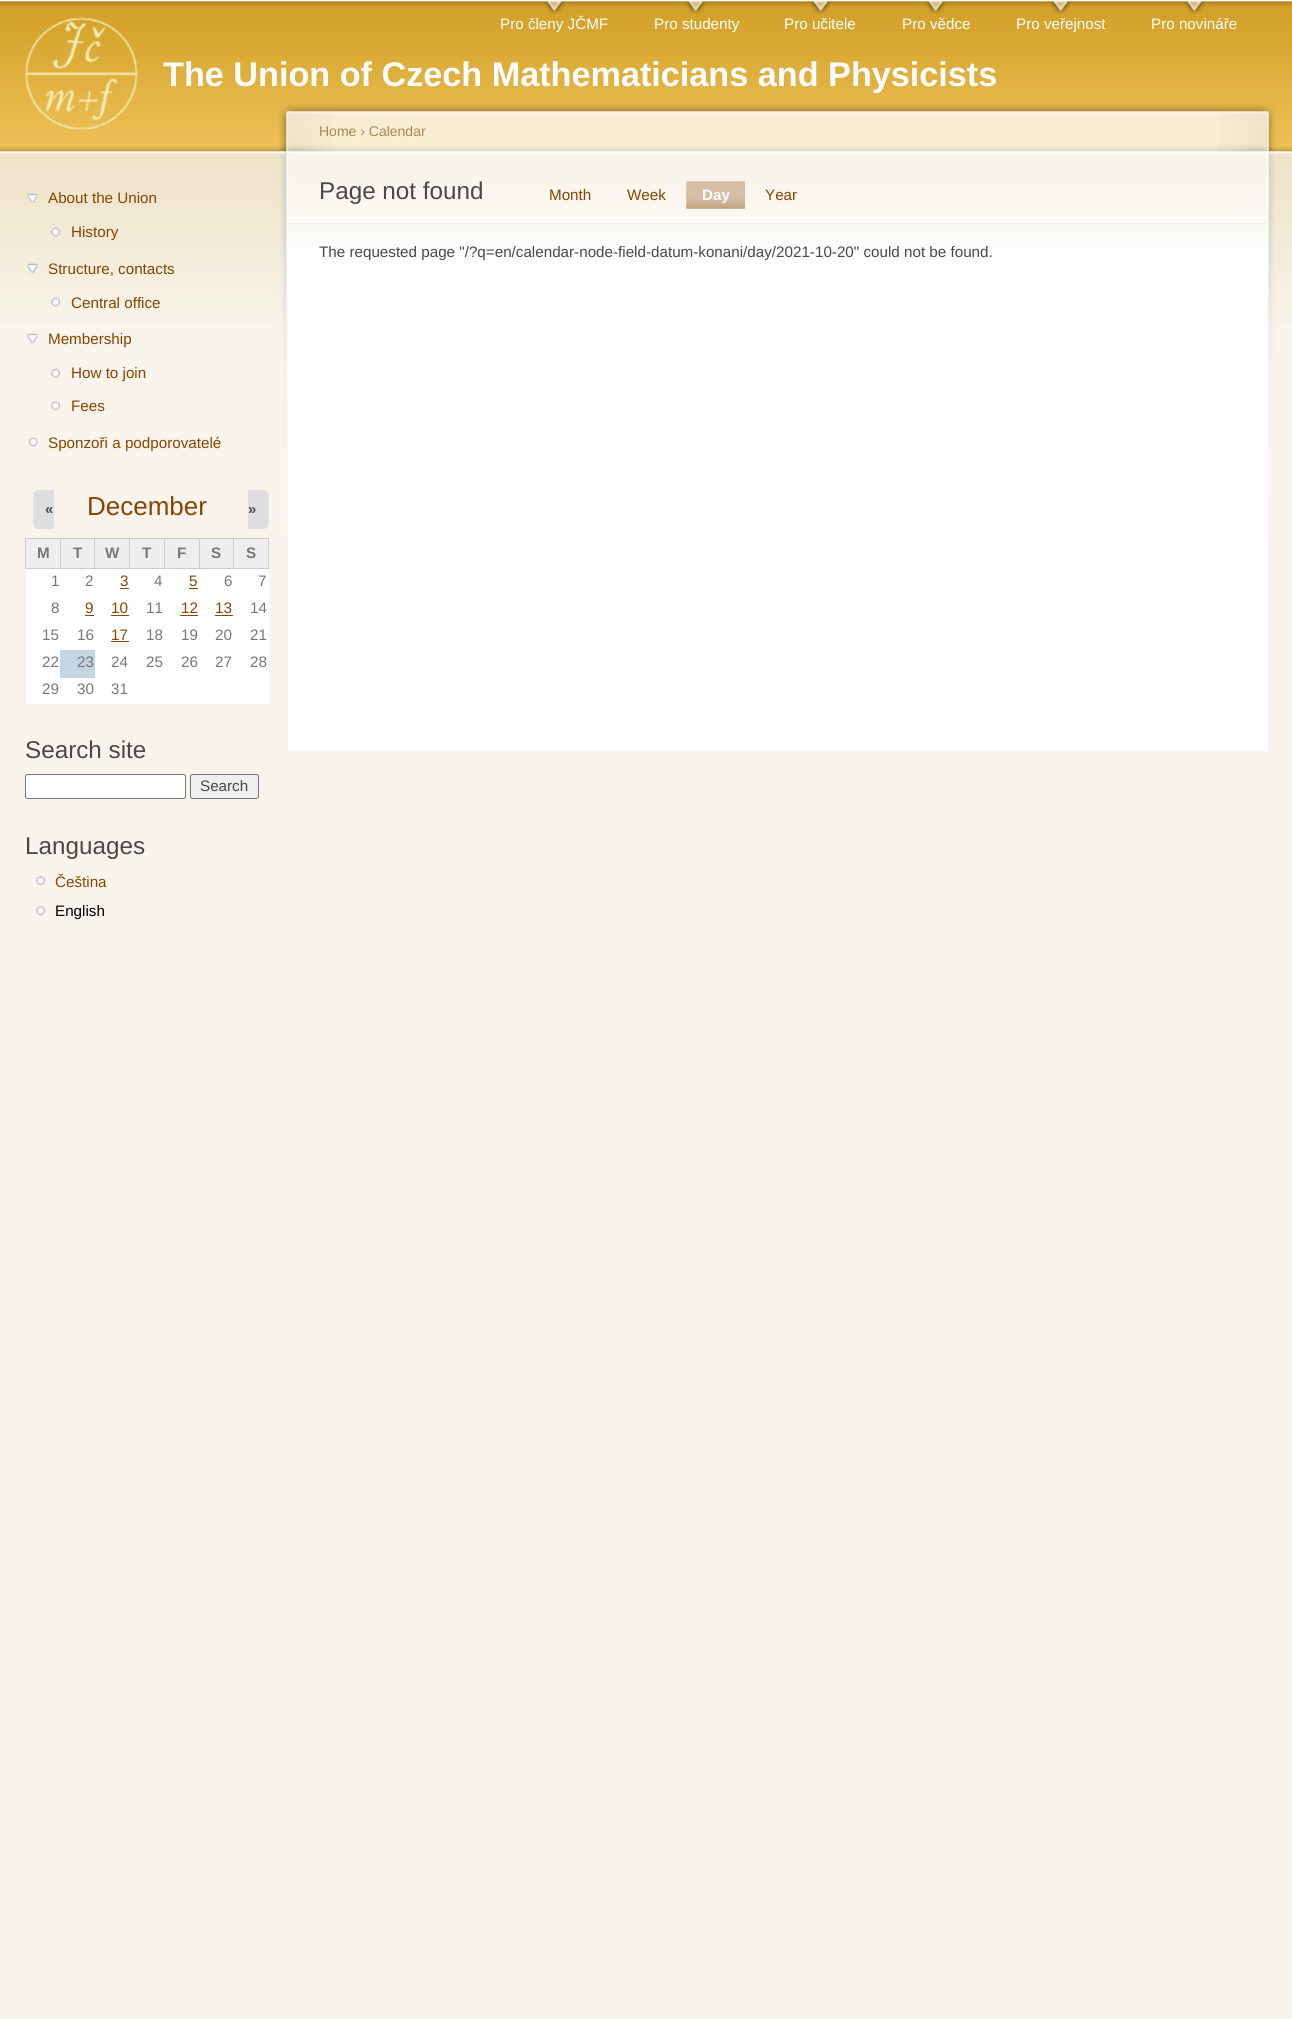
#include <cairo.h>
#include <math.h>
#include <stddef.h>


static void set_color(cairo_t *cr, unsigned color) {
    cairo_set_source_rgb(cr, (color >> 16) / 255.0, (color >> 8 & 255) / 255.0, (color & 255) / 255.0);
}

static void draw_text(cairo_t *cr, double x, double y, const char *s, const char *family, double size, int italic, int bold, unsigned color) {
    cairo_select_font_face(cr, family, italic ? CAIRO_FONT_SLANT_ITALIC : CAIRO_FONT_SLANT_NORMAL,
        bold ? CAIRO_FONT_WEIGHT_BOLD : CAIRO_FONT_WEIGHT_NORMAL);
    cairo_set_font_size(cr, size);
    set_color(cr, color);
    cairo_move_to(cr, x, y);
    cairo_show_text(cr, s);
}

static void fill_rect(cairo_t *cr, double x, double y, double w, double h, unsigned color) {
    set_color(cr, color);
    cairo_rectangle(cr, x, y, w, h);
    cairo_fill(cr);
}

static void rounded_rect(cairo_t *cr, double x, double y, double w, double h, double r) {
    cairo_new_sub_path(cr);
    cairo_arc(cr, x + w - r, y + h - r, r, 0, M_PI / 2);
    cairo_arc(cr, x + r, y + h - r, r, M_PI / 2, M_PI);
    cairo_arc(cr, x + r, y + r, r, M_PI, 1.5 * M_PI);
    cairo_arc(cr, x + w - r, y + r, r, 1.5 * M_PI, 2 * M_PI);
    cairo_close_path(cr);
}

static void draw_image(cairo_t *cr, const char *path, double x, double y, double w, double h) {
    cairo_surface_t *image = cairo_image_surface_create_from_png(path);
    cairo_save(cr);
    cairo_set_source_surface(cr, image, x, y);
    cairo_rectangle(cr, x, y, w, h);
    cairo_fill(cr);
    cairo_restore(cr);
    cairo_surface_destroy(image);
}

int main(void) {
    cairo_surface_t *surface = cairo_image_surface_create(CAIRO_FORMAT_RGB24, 1292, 2019);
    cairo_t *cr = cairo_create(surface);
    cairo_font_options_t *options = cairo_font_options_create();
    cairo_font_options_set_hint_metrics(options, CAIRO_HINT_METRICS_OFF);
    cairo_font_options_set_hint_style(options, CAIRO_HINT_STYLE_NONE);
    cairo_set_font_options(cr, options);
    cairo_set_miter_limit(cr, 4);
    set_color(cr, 0xF9F5ED);
    cairo_paint(cr);
    draw_image(cr, "assets/img1.png", 0, 0, 1292, 325);
    draw_image(cr, "assets/img2.png", 544, 1, 21, 13);
    draw_text(cr, 500, 29, "Pro členy JČMF", "Liberation Sans", 15.2, 0, 0, 0xFFFFFF);
    draw_image(cr, "assets/img3.png", 685, 1, 21, 13);
    draw_text(cr, 654, 29, "Pro studenty", "Liberation Sans", 15.2, 0, 0, 0xFFFFFF);
    draw_image(cr, "assets/img3.png", 810, 1, 21, 13);
    draw_text(cr, 784, 29, "Pro učitele", "Liberation Sans", 15.2, 0, 0, 0xFFFFFF);
    draw_image(cr, "assets/img3.png", 925, 1, 21, 13);
    draw_text(cr, 902, 29, "Pro vědce", "Liberation Sans", 15.2, 0, 0, 0xFFFFFF);
    draw_image(cr, "assets/img3.png", 1050, 1, 21, 13);
    draw_text(cr, 1016, 29, "Pro veřejnost", "Liberation Sans", 15.2, 0, 0, 0xFFFFFF);
    draw_image(cr, "assets/img2.png", 1184, 1, 21, 13);
    draw_text(cr, 1151, 29, "Pro novináře", "Liberation Sans", 15.2, 0, 0, 0xFFFFFF);
    draw_image(cr, "assets/img4.png", 25, 17, 113, 113);
    draw_text(cr, 163, 86, "The Union of Czech Mathematicians and Physicists", "Liberation Sans", 34.2, 0, 1, 0xFFFFFF);
    draw_image(cr, "assets/img5.png", 26, 193, 13, 11);
    draw_text(cr, 48, 203, "About the Union", "Liberation Sans", 15.2, 0, 0, 0x884400);
    draw_image(cr, "assets/img6.png", 51, 227, 10, 10);
    draw_text(cr, 71, 237, "History", "Liberation Sans", 15.2, 0, 0, 0x884400);
    draw_image(cr, "assets/img7.png", 26, 263, 13, 11);
    draw_text(cr, 48, 274, "Structure, contacts", "Liberation Sans", 15.2, 0, 0, 0x884400);
    draw_image(cr, "assets/img8.png", 51, 297, 10, 10);
    draw_text(cr, 71, 308, "Central office", "Liberation Sans", 15.2, 0, 0, 0x884400);
    draw_image(cr, "assets/img9.png", 26, 333, 13, 11);
    draw_text(cr, 48, 344, "Membership", "Liberation Sans", 15.2, 0, 0, 0x884400);
    draw_image(cr, "assets/img10.png", 51, 368, 10, 10);
    draw_text(cr, 71, 378, "How to join", "Liberation Sans", 15.2, 0, 0, 0x884400);
    draw_image(cr, "assets/img11.png", 51, 401, 10, 10);
    draw_text(cr, 71, 411, "Fees", "Liberation Sans", 15.2, 0, 0, 0x884400);
    draw_image(cr, "assets/img12.png", 28, 437, 10, 10);
    draw_text(cr, 48, 448, "Sponzoři a podporovatelé", "Liberation Sans", 15.2, 0, 0, 0x884400);
    draw_text(cr, 87, 515, "December", "Liberation Sans", 26, 0, 0, 0x884400);
    set_color(cr, 0xDFDFDF);
    cairo_new_path(cr);
    cairo_move_to(cr, 39, 490);
    cairo_line_to(cr, 54, 490);
    cairo_line_to(cr, 54, 529);
    cairo_line_to(cr, 39, 529);
    cairo_curve_to(cr, 35.5, 529, 33, 526.5, 33, 523);
    cairo_line_to(cr, 33, 496);
    cairo_curve_to(cr, 33, 492.5, 35.5, 490, 39, 490);
    cairo_close_path(cr);
    cairo_fill(cr);
    draw_text(cr, 45, 514, "«", "Liberation Sans", 15, 0, 1, 0x494949);
    set_color(cr, 0xDFDFDF);
    cairo_new_path(cr);
    cairo_move_to(cr, 248, 490);
    cairo_line_to(cr, 263, 490);
    cairo_curve_to(cr, 266.5, 490, 269, 492.5, 269, 496);
    cairo_line_to(cr, 269, 523);
    cairo_curve_to(cr, 269, 526.5, 266.5, 529, 263, 529);
    cairo_line_to(cr, 248, 529);
    cairo_close_path(cr);
    cairo_fill(cr);
    draw_text(cr, 248, 514, "»", "Liberation Sans", 15, 0, 1, 0x494949);
    fill_rect(cr, 26, 539, 34, 29, 0xEEEEEE);
    fill_rect(cr, 233, 538, 36, 1, 0xCCCCCC);
    fill_rect(cr, 268, 538, 1, 31, 0xCCCCCC);
    fill_rect(cr, 233, 568, 36, 1, 0xCCCCCC);
    fill_rect(cr, 233, 538, 1, 31, 0xCCCCCC);
    fill_rect(cr, 199, 538, 35, 1, 0xCCCCCC);
    fill_rect(cr, 199, 568, 35, 1, 0xCCCCCC);
    fill_rect(cr, 199, 538, 1, 31, 0xCCCCCC);
    fill_rect(cr, 164, 538, 36, 1, 0xCCCCCC);
    fill_rect(cr, 164, 568, 36, 1, 0xCCCCCC);
    fill_rect(cr, 164, 538, 1, 31, 0xCCCCCC);
    fill_rect(cr, 129, 538, 36, 1, 0xCCCCCC);
    fill_rect(cr, 129, 568, 36, 1, 0xCCCCCC);
    fill_rect(cr, 129, 538, 1, 31, 0xCCCCCC);
    fill_rect(cr, 94, 538, 36, 1, 0xCCCCCC);
    fill_rect(cr, 94, 568, 36, 1, 0xCCCCCC);
    fill_rect(cr, 94, 538, 1, 31, 0xCCCCCC);
    fill_rect(cr, 60, 538, 35, 1, 0xCCCCCC);
    fill_rect(cr, 60, 568, 35, 1, 0xCCCCCC);
    fill_rect(cr, 60, 538, 1, 31, 0xCCCCCC);
    fill_rect(cr, 25, 538, 36, 1, 0xCCCCCC);
    fill_rect(cr, 25, 568, 36, 1, 0xCCCCCC);
    fill_rect(cr, 25, 538, 1, 31, 0xCCCCCC);
    draw_text(cr, 37, 558, "M", "Liberation Sans", 15.2, 0, 1, 0x777777);
    fill_rect(cr, 61, 539, 33, 29, 0xEEEEEE);
    draw_text(cr, 73, 558, "T", "Liberation Sans", 15.2, 0, 1, 0x777777);
    fill_rect(cr, 95, 539, 34, 29, 0xEEEEEE);
    draw_text(cr, 105, 558, "W", "Liberation Sans", 15.2, 0, 1, 0x777777);
    fill_rect(cr, 130, 539, 34, 29, 0xEEEEEE);
    draw_text(cr, 142, 558, "T", "Liberation Sans", 15.2, 0, 1, 0x777777);
    fill_rect(cr, 165, 539, 34, 29, 0xEEEEEE);
    draw_text(cr, 177, 558, "F", "Liberation Sans", 15.2, 0, 1, 0x777777);
    fill_rect(cr, 200, 539, 33, 29, 0xEEEEEE);
    draw_text(cr, 211, 558, "S", "Liberation Sans", 15.2, 0, 1, 0x777777);
    fill_rect(cr, 234, 539, 34, 29, 0xEEEEEE);
    draw_text(cr, 246, 558, "S", "Liberation Sans", 15.2, 0, 1, 0x777777);
    fill_rect(cr, 26, 569, 243, 135, 0xFFFFFF);
    draw_text(cr, 51, 586, "1", "Liberation Sans", 15.2, 0, 0, 0x777777);
    draw_text(cr, 85, 586, "2", "Liberation Sans", 15.2, 0, 0, 0x777777);
    draw_text(cr, 120, 586, "3", "Liberation Sans", 15.2, 0, 0, 0x884400);
    fill_rect(cr, 120, 588, 9, 1, 0x884400);
    draw_text(cr, 154, 586, "4", "Liberation Sans", 15.2, 0, 0, 0x777777);
    draw_text(cr, 189, 586, "5", "Liberation Sans", 15.2, 0, 0, 0x884400);
    fill_rect(cr, 189, 588, 9, 1, 0x884400);
    draw_text(cr, 224, 586, "6", "Liberation Sans", 15.2, 0, 0, 0x777777);
    draw_text(cr, 258, 586, "7", "Liberation Sans", 15.2, 0, 0, 0x777777);
    draw_text(cr, 51, 613, "8", "Liberation Sans", 15.2, 0, 0, 0x777777);
    draw_text(cr, 85, 613, "9", "Liberation Sans", 15.2, 0, 0, 0x884400);
    fill_rect(cr, 85, 615, 9, 1, 0x884400);
    draw_text(cr, 111, 613, "10", "Liberation Sans", 15.2, 0, 0, 0x884400);
    fill_rect(cr, 111, 615, 18, 1, 0x884400);
    draw_text(cr, 146, 613, "11", "Liberation Sans", 15.2, 0, 0, 0x777777);
    draw_text(cr, 181, 613, "12", "Liberation Sans", 15.2, 0, 0, 0x884400);
    fill_rect(cr, 180, 615, 18, 1, 0x884400);
    draw_text(cr, 215, 613, "13", "Liberation Sans", 15.2, 0, 0, 0x884400);
    fill_rect(cr, 215, 615, 18, 1, 0x884400);
    draw_text(cr, 250, 613, "14", "Liberation Sans", 15.2, 0, 0, 0x777777);
    draw_text(cr, 42, 640, "15", "Liberation Sans", 15.2, 0, 0, 0x777777);
    draw_text(cr, 77, 640, "16", "Liberation Sans", 15.2, 0, 0, 0x777777);
    draw_text(cr, 111, 640, "17", "Liberation Sans", 15.2, 0, 0, 0x884400);
    fill_rect(cr, 111, 641, 18, 1, 0x884400);
    draw_text(cr, 146, 640, "18", "Liberation Sans", 15.2, 0, 0, 0x777777);
    draw_text(cr, 181, 640, "19", "Liberation Sans", 15.2, 0, 0, 0x777777);
    draw_text(cr, 215, 640, "20", "Liberation Sans", 15.2, 0, 0, 0x777777);
    draw_text(cr, 250, 640, "21", "Liberation Sans", 15.2, 0, 0, 0x777777);
    draw_text(cr, 42, 667, "22", "Liberation Sans", 15.2, 0, 0, 0x777777);
    fill_rect(cr, 60, 650, 35, 28, 0xC3D6E4);
    draw_text(cr, 77, 667, "23", "Liberation Sans", 15.2, 0, 0, 0x777777);
    draw_text(cr, 111, 667, "24", "Liberation Sans", 15.2, 0, 0, 0x777777);
    draw_text(cr, 146, 667, "25", "Liberation Sans", 15.2, 0, 0, 0x777777);
    draw_text(cr, 181, 667, "26", "Liberation Sans", 15.2, 0, 0, 0x777777);
    draw_text(cr, 215, 667, "27", "Liberation Sans", 15.2, 0, 0, 0x777777);
    draw_text(cr, 250, 667, "28", "Liberation Sans", 15.2, 0, 0, 0x777777);
    draw_text(cr, 42, 694, "29", "Liberation Sans", 15.2, 0, 0, 0x777777);
    draw_text(cr, 77, 694, "30", "Liberation Sans", 15.2, 0, 0, 0x777777);
    draw_text(cr, 111, 694, "31", "Liberation Sans", 15.2, 0, 0, 0x777777);
    draw_text(cr, 25, 758, "Search site", "Liberation Sans", 24.25, 0, 0, 0x494949);
    set_color(cr, 0xFFFFFF);
    rounded_rect(cr, 25.5, 774.5, 160, 24, 2);
    cairo_fill_preserve(cr);
    set_color(cr, 0x767676);
    cairo_set_line_width(cr, 1);
    cairo_stroke(cr);
    set_color(cr, 0xEFEFEF);
    rounded_rect(cr, 190.5, 774.5, 68, 24, 2);
    cairo_fill_preserve(cr);
    set_color(cr, 0x767676);
    cairo_stroke(cr);
    draw_text(cr, 200, 791, "Search", "Liberation Sans", 15.2, 0, 0, 0x494949);
    draw_text(cr, 25, 854, "Languages", "Liberation Sans", 24.25, 0, 0, 0x494949);
    draw_image(cr, "assets/img13.png", 36, 876, 10, 10);
    draw_text(cr, 55, 887, "Čeština", "Liberation Sans", 15.2, 0, 0, 0x884400);
    draw_image(cr, "assets/img13.png", 36, 906, 10, 10);
    draw_text(cr, 55, 916, "English", "Liberation Sans", 15.2, 0, 0, 0x000000);
    fill_rect(cr, 288, 350, 980, 401, 0xFFFFFF);
    draw_image(cr, "assets/img14.png", 287, 100, 931, 250);
    draw_image(cr, "assets/img15.png", 1218, 100, 58, 440);
    draw_image(cr, "assets/img16.png", 278, 105, 57, 435);
    draw_text(cr, 319, 136, "Home › Calendar", "Liberation Sans", 14, 0, 0, 0xAB834F);
    fill_rect(cr, 286, 223, 983, 1, 0xF2EFE9);
    draw_text(cr, 319, 199, "Page not found", "Liberation Sans", 24.25, 0, 0, 0x494949);
    draw_text(cr, 549, 200, "Month", "Liberation Sans", 15.2, 0, 0, 0x884400);
    draw_text(cr, 627, 200, "Week", "Liberation Sans", 15.2, 0, 0, 0x884400);
    draw_image(cr, "assets/img17.png", 686, 181, 59, 28);
    draw_text(cr, 702, 200, "Day", "Liberation Sans", 15.2, 0, 1, 0xFFFFFF);
    draw_text(cr, 765, 200, "Year", "Liberation Sans", 15.2, 0, 0, 0x884400);
    draw_text(cr, 319, 257, "The requested page \"/?q=en/calendar-node-field-datum-konani/day/2021-10-20\" could not be found.", "Liberation Sans", 15.2, 0, 0, 0x494949);
    cairo_surface_write_to_png(surface, "output.png");
    cairo_font_options_destroy(options);
    cairo_destroy(cr);
    cairo_surface_destroy(surface);
    return 0;
}
